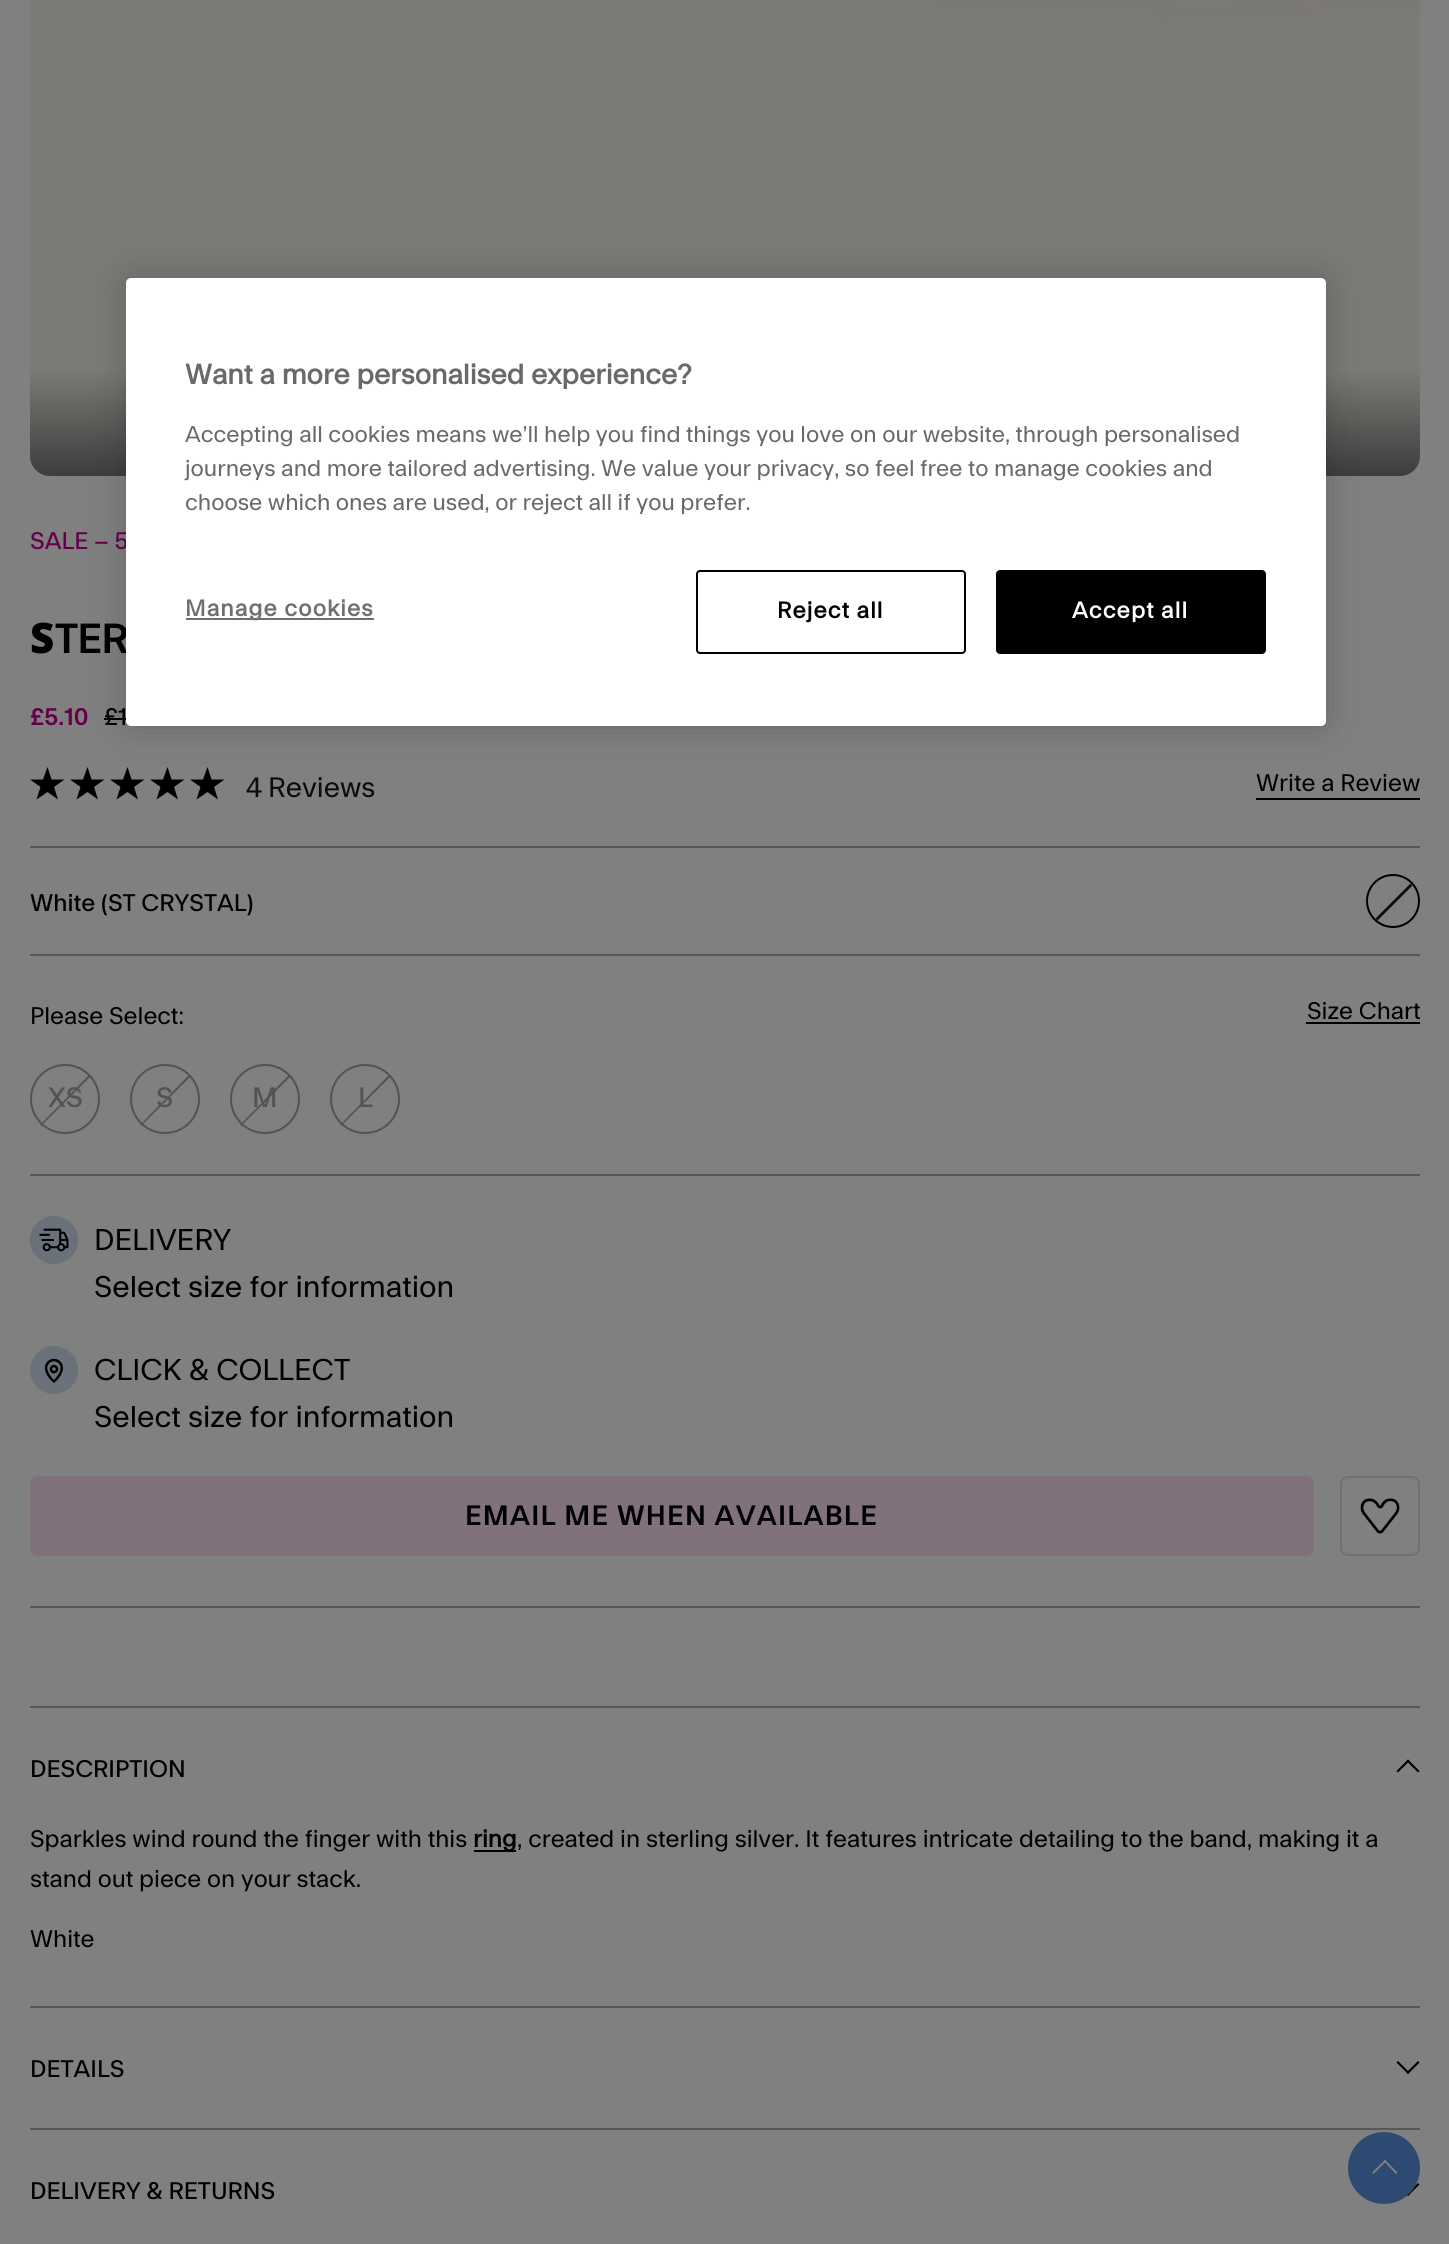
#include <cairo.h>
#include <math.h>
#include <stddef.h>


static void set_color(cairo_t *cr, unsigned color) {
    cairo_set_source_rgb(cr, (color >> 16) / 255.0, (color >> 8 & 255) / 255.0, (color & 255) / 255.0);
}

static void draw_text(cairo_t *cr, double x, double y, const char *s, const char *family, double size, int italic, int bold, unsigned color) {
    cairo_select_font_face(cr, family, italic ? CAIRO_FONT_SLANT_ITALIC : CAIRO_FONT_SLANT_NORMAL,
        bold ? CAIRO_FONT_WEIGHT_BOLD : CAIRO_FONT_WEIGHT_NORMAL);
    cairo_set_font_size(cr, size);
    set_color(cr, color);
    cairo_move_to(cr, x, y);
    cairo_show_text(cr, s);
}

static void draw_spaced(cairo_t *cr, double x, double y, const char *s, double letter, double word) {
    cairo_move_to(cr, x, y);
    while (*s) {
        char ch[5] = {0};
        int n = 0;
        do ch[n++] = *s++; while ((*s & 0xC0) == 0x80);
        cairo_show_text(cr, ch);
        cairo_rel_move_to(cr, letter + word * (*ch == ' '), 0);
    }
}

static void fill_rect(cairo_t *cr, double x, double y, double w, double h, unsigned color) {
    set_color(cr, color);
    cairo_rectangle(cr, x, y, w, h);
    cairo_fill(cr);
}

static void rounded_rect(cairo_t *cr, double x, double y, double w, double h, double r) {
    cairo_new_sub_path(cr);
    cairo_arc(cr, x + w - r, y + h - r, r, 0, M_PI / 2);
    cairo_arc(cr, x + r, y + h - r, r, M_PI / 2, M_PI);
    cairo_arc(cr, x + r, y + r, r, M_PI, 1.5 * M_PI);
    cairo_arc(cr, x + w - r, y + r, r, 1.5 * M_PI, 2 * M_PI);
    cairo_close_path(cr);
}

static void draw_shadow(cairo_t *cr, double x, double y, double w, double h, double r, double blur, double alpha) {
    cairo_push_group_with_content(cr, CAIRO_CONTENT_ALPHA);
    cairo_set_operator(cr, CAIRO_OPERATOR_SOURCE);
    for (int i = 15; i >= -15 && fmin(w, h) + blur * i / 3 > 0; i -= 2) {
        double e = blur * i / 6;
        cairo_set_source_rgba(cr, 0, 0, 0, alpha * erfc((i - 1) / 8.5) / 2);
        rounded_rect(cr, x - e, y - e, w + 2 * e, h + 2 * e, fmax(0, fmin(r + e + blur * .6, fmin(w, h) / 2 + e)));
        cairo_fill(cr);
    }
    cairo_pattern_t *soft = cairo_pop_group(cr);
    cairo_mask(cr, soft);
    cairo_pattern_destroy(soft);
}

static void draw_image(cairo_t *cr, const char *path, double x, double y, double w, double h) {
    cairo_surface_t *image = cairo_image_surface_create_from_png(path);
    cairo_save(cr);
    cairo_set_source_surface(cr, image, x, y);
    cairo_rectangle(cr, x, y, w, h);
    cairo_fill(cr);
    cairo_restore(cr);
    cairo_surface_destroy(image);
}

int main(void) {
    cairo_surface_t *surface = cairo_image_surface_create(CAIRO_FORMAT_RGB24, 1449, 2244);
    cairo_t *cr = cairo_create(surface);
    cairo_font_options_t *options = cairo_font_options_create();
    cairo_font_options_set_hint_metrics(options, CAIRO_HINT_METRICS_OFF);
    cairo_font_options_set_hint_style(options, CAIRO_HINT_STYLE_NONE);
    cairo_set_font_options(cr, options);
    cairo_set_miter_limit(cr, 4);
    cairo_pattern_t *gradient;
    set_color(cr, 0x808080);
    cairo_paint(cr);
    draw_image(cr, "assets/img1.png", 30, 0, 1390, 476);
    gradient = cairo_pattern_create_linear(725, 581, 725, 266);
    cairo_pattern_add_color_stop_rgba(gradient, 0, 0, 0, 0, 1);
    cairo_pattern_add_color_stop_rgba(gradient, 0.67, 0, 0, 0, 0);
    cairo_set_source(cr, gradient);
    cairo_pattern_destroy(gradient);
    cairo_new_path(cr);
    cairo_move_to(cr, 30, 266);
    cairo_line_to(cr, 1420, 266);
    cairo_line_to(cr, 1420, 456);
    cairo_curve_to(cr, 1420, 467, 1411, 476, 1400, 476);
    cairo_line_to(cr, 50, 476);
    cairo_curve_to(cr, 39, 476, 30, 467, 30, 456);
    cairo_close_path(cr);
    cairo_fill(cr);
    fill_rect(cr, 104, 718, 22, 2, 0x000000);
    cairo_new_path(cr);
    cairo_move_to(cr, 87.5, 767);
    cairo_line_to(cr, 91.5, 779.5);
    cairo_line_to(cr, 104.5, 779.5);
    cairo_line_to(cr, 94, 787);
    cairo_line_to(cr, 98, 799.5);
    cairo_line_to(cr, 87.5, 792);
    cairo_line_to(cr, 76.5, 799.5);
    cairo_line_to(cr, 80.5, 787);
    cairo_line_to(cr, 70, 779.5);
    cairo_line_to(cr, 83, 779.5);
    cairo_close_path(cr);
    cairo_fill(cr);
    cairo_new_path(cr);
    cairo_move_to(cr, 127.5, 767);
    cairo_line_to(cr, 131.5, 779.5);
    cairo_line_to(cr, 144.5, 779.5);
    cairo_line_to(cr, 134, 787);
    cairo_line_to(cr, 138, 799.5);
    cairo_line_to(cr, 127.5, 792);
    cairo_line_to(cr, 116.5, 799.5);
    cairo_line_to(cr, 120.5, 787);
    cairo_line_to(cr, 110, 779.5);
    cairo_line_to(cr, 123, 779.5);
    cairo_close_path(cr);
    cairo_fill(cr);
    cairo_new_path(cr);
    cairo_move_to(cr, 167.5, 767);
    cairo_line_to(cr, 171.5, 779.5);
    cairo_line_to(cr, 184.5, 779.5);
    cairo_line_to(cr, 174, 787);
    cairo_line_to(cr, 178, 799.5);
    cairo_line_to(cr, 167.5, 792);
    cairo_line_to(cr, 156.5, 799.5);
    cairo_line_to(cr, 160.5, 787);
    cairo_line_to(cr, 150, 779.5);
    cairo_line_to(cr, 163, 779.5);
    cairo_close_path(cr);
    cairo_fill(cr);
    cairo_new_path(cr);
    cairo_move_to(cr, 207.5, 767);
    cairo_line_to(cr, 211.5, 779.5);
    cairo_line_to(cr, 224.5, 779.5);
    cairo_line_to(cr, 214, 787);
    cairo_line_to(cr, 218, 799.5);
    cairo_line_to(cr, 207.5, 792);
    cairo_line_to(cr, 196.5, 799.5);
    cairo_line_to(cr, 200.5, 787);
    cairo_line_to(cr, 190, 779.5);
    cairo_line_to(cr, 203, 779.5);
    cairo_close_path(cr);
    cairo_fill(cr);
    set_color(cr, 0x000000);
    draw_shadow(cr, 126, 278, 1200, 448, 5, 18, 0.2);
    draw_text(cr, 30, 549, "SALE – 5", "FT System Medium", 24, 0, 0, 0x640048);
    cairo_select_font_face(cr, "FT System SemiBold", CAIRO_FONT_SLANT_NORMAL, CAIRO_FONT_WEIGHT_NORMAL);
    cairo_set_font_size(cr, 42);
    set_color(cr, 0x000000);
    draw_spaced(cr, 55, 653, "TER", -1, 0);
    set_color(cr, 0xFFFFFF);
    rounded_rect(cr, 126, 278, 1200, 448, 5);
    cairo_fill(cr);
    draw_text(cr, 185, 384, "Want a more personalised experience?", "FT System", 28, 0, 1, 0x696969);
    draw_text(cr, 185, 442, "Accepting all cookies means we’ll help you find things you love on our website, through personalised", "FT System", 22.75, 0, 0, 0x696969);
    draw_text(cr, 185, 476, "journeys and more tailored advertising. We value your privacy, so feel free to manage cookies and", "FT System", 22.75, 0, 0, 0x696969);
    draw_text(cr, 185, 510, "choose which ones are used, or reject all if you prefer.", "FT System", 22.75, 0, 0, 0x696969);
    fill_rect(cr, 186, 618, 188, 2, 0x707070);
    cairo_select_font_face(cr, "FT System", CAIRO_FONT_SLANT_NORMAL, CAIRO_FONT_WEIGHT_BOLD);
    draw_spaced(cr, 185, 616, "Manage cookies", 1.1, 0);
    rounded_rect(cr, 697, 571, 268, 82, 3);
    set_color(cr, 0x000000);
    cairo_stroke(cr);
    draw_spaced(cr, 777, 618, "Reject all", 1.1, 0);
    rounded_rect(cr, 997, 571, 268, 82, 3);
    cairo_fill_preserve(cr);
    cairo_stroke(cr);
    set_color(cr, 0xFFFFFF);
    draw_spaced(cr, 1072, 618, "Accept all", 1.1, 0);
    cairo_select_font_face(cr, "Noto Sans Black", CAIRO_FONT_SLANT_NORMAL, CAIRO_FONT_WEIGHT_NORMAL);
    cairo_set_font_size(cr, 42);
    set_color(cr, 0x000000);
    draw_spaced(cr, 30, 653, "S", -1, 0);
    draw_text(cr, 30, 725, "£5.10", "FT System SemiBold", 24, 0, 0, 0x640048);
    draw_text(cr, 104, 725, "£1", "FT System Medium", 24, 0, 0, 0x000000);
    cairo_new_path(cr);
    cairo_move_to(cr, 47.5, 767);
    cairo_line_to(cr, 51.5, 779.5);
    cairo_line_to(cr, 64.5, 779.5);
    cairo_line_to(cr, 54, 787);
    cairo_line_to(cr, 58, 799.5);
    cairo_line_to(cr, 47.5, 792);
    cairo_line_to(cr, 36.5, 799.5);
    cairo_line_to(cr, 40.5, 787);
    cairo_line_to(cr, 30, 779.5);
    cairo_line_to(cr, 43, 779.5);
    cairo_close_path(cr);
    cairo_fill(cr);
    draw_text(cr, 246, 797, "4", "FT System", 28, 0, 0, 0x0E0C08);
    draw_text(cr, 268, 797, "Reviews", "FT System", 28, 0, 0, 0x0E0C08);
    fill_rect(cr, 1256, 798, 164, 2, 0x000000);
    draw_text(cr, 1256, 791, "Write a Review", "FT System", 24, 0, 0, 0x000000);
    fill_rect(cr, 30, 846, 1390, 2, 0x575757);
    fill_rect(cr, 30, 954, 1390, 2, 0x575757);
    draw_text(cr, 30, 911, "White (ST CRYSTAL)", "FT System Medium", 24, 0, 0, 0x000000);
    cairo_new_path(cr);
    cairo_arc(cr, 1393, 901, 26, 0, 2 * M_PI);
    cairo_stroke(cr);
    set_color(cr, 0x0E0C08);
    cairo_new_path(cr);
    cairo_move_to(cr, 1377.5, 920.5);
    cairo_line_to(cr, 1375.5, 918.5);
    cairo_line_to(cr, 1410.5, 883.5);
    cairo_line_to(cr, 1412.5, 885.5);
    cairo_close_path(cr);
    cairo_fill(cr);
    fill_rect(cr, 30, 1174, 1390, 2, 0x575757);
    draw_text(cr, 30, 1024, "Please Select:", "FT System", 24, 0, 0, 0x000000);
    draw_text(cr, 1307, 1019, "Size Chart", "FT System", 24, 0, 0, 0x000000);
    fill_rect(cr, 1306, 1022, 114, 2, 0x000000);
    cairo_new_path(cr);
    cairo_arc(cr, 65, 1099, 34, 0, 2 * M_PI);
    set_color(cr, 0x535353);
    cairo_stroke(cr);
    cairo_new_path(cr);
    cairo_move_to(cr, 40, 1125);
    cairo_line_to(cr, 89, 1075);
    cairo_line_to(cr, 90, 1077);
    cairo_line_to(cr, 41, 1126);
    cairo_close_path(cr);
    cairo_fill(cr);
    draw_text(cr, 48, 1107, "XS", "FT System Medium", 28, 0, 0, 0x535353);
    cairo_new_path(cr);
    cairo_arc(cr, 165, 1099, 34, 0, 2 * M_PI);
    cairo_stroke(cr);
    cairo_new_path(cr);
    cairo_move_to(cr, 140, 1125);
    cairo_line_to(cr, 189, 1075);
    cairo_line_to(cr, 190, 1077);
    cairo_line_to(cr, 141, 1126);
    cairo_close_path(cr);
    cairo_fill(cr);
    draw_text(cr, 156, 1107, "S", "FT System Medium", 28, 0, 0, 0x535353);
    cairo_new_path(cr);
    cairo_arc(cr, 265, 1099, 34, 0, 2 * M_PI);
    cairo_stroke(cr);
    cairo_new_path(cr);
    cairo_move_to(cr, 240, 1125);
    cairo_line_to(cr, 289, 1075);
    cairo_line_to(cr, 290, 1077);
    cairo_line_to(cr, 241, 1126);
    cairo_close_path(cr);
    cairo_fill(cr);
    draw_text(cr, 252, 1107, "M", "FT System Medium", 28, 0, 0, 0x535353);
    cairo_new_path(cr);
    cairo_arc(cr, 365, 1099, 34, 0, 2 * M_PI);
    cairo_stroke(cr);
    cairo_new_path(cr);
    cairo_move_to(cr, 340, 1125);
    cairo_line_to(cr, 389, 1075);
    cairo_line_to(cr, 390, 1077);
    cairo_line_to(cr, 341, 1126);
    cairo_close_path(cr);
    cairo_fill(cr);
    draw_text(cr, 358, 1107, "L", "FT System Medium", 28, 0, 0, 0x535353);
    set_color(cr, 0x6B717A);
    cairo_new_path(cr);
    cairo_arc(cr, 54, 1240, 24, 0, 2 * M_PI);
    cairo_fill(cr);
    draw_image(cr, "assets/img2.png", 39, 1228, 30, 24);
    draw_text(cr, 94, 1250, "DELIVERY", "FT System", 30, 0, 0, 0x000000);
    draw_text(cr, 94, 1297, "Select size for information", "FT System", 30, 0, 0, 0x000000);
    set_color(cr, 0x6B717A);
    cairo_new_path(cr);
    cairo_arc(cr, 54, 1370, 24, 0, 2 * M_PI);
    cairo_fill(cr);
    draw_image(cr, "assets/img3.png", 44, 1358, 19, 25);
    draw_text(cr, 94, 1380, "CLICK & COLLECT", "FT System", 30, 0, 0, 0x000000);
    draw_text(cr, 94, 1427, "Select size for information", "FT System", 30, 0, 0, 0x000000);
    set_color(cr, 0x80717D);
    rounded_rect(cr, 31, 1477, 1282, 78, 7);
    cairo_fill_preserve(cr);
    cairo_stroke(cr);
    cairo_select_font_face(cr, "FT System SemiBold", CAIRO_FONT_SLANT_NORMAL, CAIRO_FONT_WEIGHT_NORMAL);
    cairo_set_font_size(cr, 28);
    set_color(cr, 0x000000);
    draw_spaced(cr, 465, 1525, "EMAIL ME WHEN AVAILABLE", 1.2, 0);
    rounded_rect(cr, 1341, 1477, 78, 78, 7);
    set_color(cr, 0x737272);
    cairo_stroke(cr);
    draw_image(cr, "assets/img4.png", 1360, 1498, 40, 36);
    fill_rect(cr, 30, 1606, 1390, 2, 0x575757);
    fill_rect(cr, 30, 1706, 1390, 2, 0x575757);
    draw_text(cr, 30, 1777, "DESCRIPTION", "FT System Medium", 24, 0, 0, 0x000000);
    cairo_new_path(cr);
    cairo_move_to(cr, 1398, 1772.5);
    cairo_line_to(cr, 1396.5, 1771);
    cairo_line_to(cr, 1408, 1759.5);
    cairo_line_to(cr, 1409.5, 1761);
    cairo_close_path(cr);
    cairo_fill(cr);
    cairo_new_path(cr);
    cairo_move_to(cr, 1418, 1772.5);
    cairo_line_to(cr, 1406.5, 1761);
    cairo_line_to(cr, 1408, 1759.5);
    cairo_line_to(cr, 1419.5, 1771);
    cairo_close_path(cr);
    cairo_fill(cr);
    draw_text(cr, 30, 1847, "Sparkles wind round the finger with this", "FT System", 24, 0, 0, 0x000000);
    fill_rect(cr, 474, 1850, 42, 2, 0x000000);
    draw_text(cr, 473, 1847, "ring", "FT System", 24, 0, 1, 0x000000);
    draw_text(cr, 517, 1847, ", created in sterling silver. It features intricate detailing to the band, making it a", "FT System", 24, 0, 0, 0x000000);
    draw_text(cr, 30, 1887, "stand out piece on your stack.", "FT System", 24, 0, 0, 0x000000);
    draw_text(cr, 30, 1947, "White", "FT System", 24, 0, 0, 0x000000);
    fill_rect(cr, 30, 2006, 1390, 2, 0x575757);
    draw_text(cr, 30, 2077, "DETAILS", "FT System Medium", 24, 0, 0, 0x000000);
    cairo_new_path(cr);
    cairo_move_to(cr, 1418, 2061);
    cairo_line_to(cr, 1419.5, 2062.5);
    cairo_line_to(cr, 1408, 2074);
    cairo_line_to(cr, 1406.5, 2072.5);
    cairo_close_path(cr);
    cairo_fill(cr);
    cairo_new_path(cr);
    cairo_move_to(cr, 1398, 2061);
    cairo_line_to(cr, 1409.5, 2072.5);
    cairo_line_to(cr, 1408, 2074);
    cairo_line_to(cr, 1396.5, 2062.5);
    cairo_close_path(cr);
    cairo_fill(cr);
    fill_rect(cr, 30, 2128, 1390, 2, 0x575757);
    draw_text(cr, 30, 2199, "DELIVERY & RETURNS", "FT System Medium", 24, 0, 0, 0x000000);
    cairo_new_path(cr);
    cairo_move_to(cr, 1418, 2183);
    cairo_line_to(cr, 1419.5, 2184.5);
    cairo_line_to(cr, 1408, 2196);
    cairo_line_to(cr, 1406.5, 2194.5);
    cairo_close_path(cr);
    cairo_fill(cr);
    cairo_new_path(cr);
    cairo_move_to(cr, 1398, 2183);
    cairo_line_to(cr, 1409.5, 2194.5);
    cairo_line_to(cr, 1408, 2196);
    cairo_line_to(cr, 1396.5, 2184.5);
    cairo_close_path(cr);
    cairo_fill(cr);
    set_color(cr, 0x2E4972);
    cairo_arc(cr, 1384, 2168, 36, 0, 2 * M_PI);
    cairo_fill(cr);
    set_color(cr, 0x808080);
    cairo_new_path(cr);
    cairo_move_to(cr, 1385, 2160);
    cairo_line_to(cr, 1397.5, 2172.5);
    cairo_line_to(cr, 1396, 2174);
    cairo_line_to(cr, 1383.5, 2161);
    cairo_close_path(cr);
    cairo_fill(cr);
    cairo_new_path(cr);
    cairo_move_to(cr, 1385, 2160);
    cairo_line_to(cr, 1386.5, 2161);
    cairo_line_to(cr, 1373.5, 2174);
    cairo_line_to(cr, 1372, 2172.5);
    cairo_close_path(cr);
    cairo_fill(cr);
    cairo_surface_write_to_png(surface, "output.png");
    cairo_font_options_destroy(options);
    cairo_destroy(cr);
    cairo_surface_destroy(surface);
    return 0;
}
